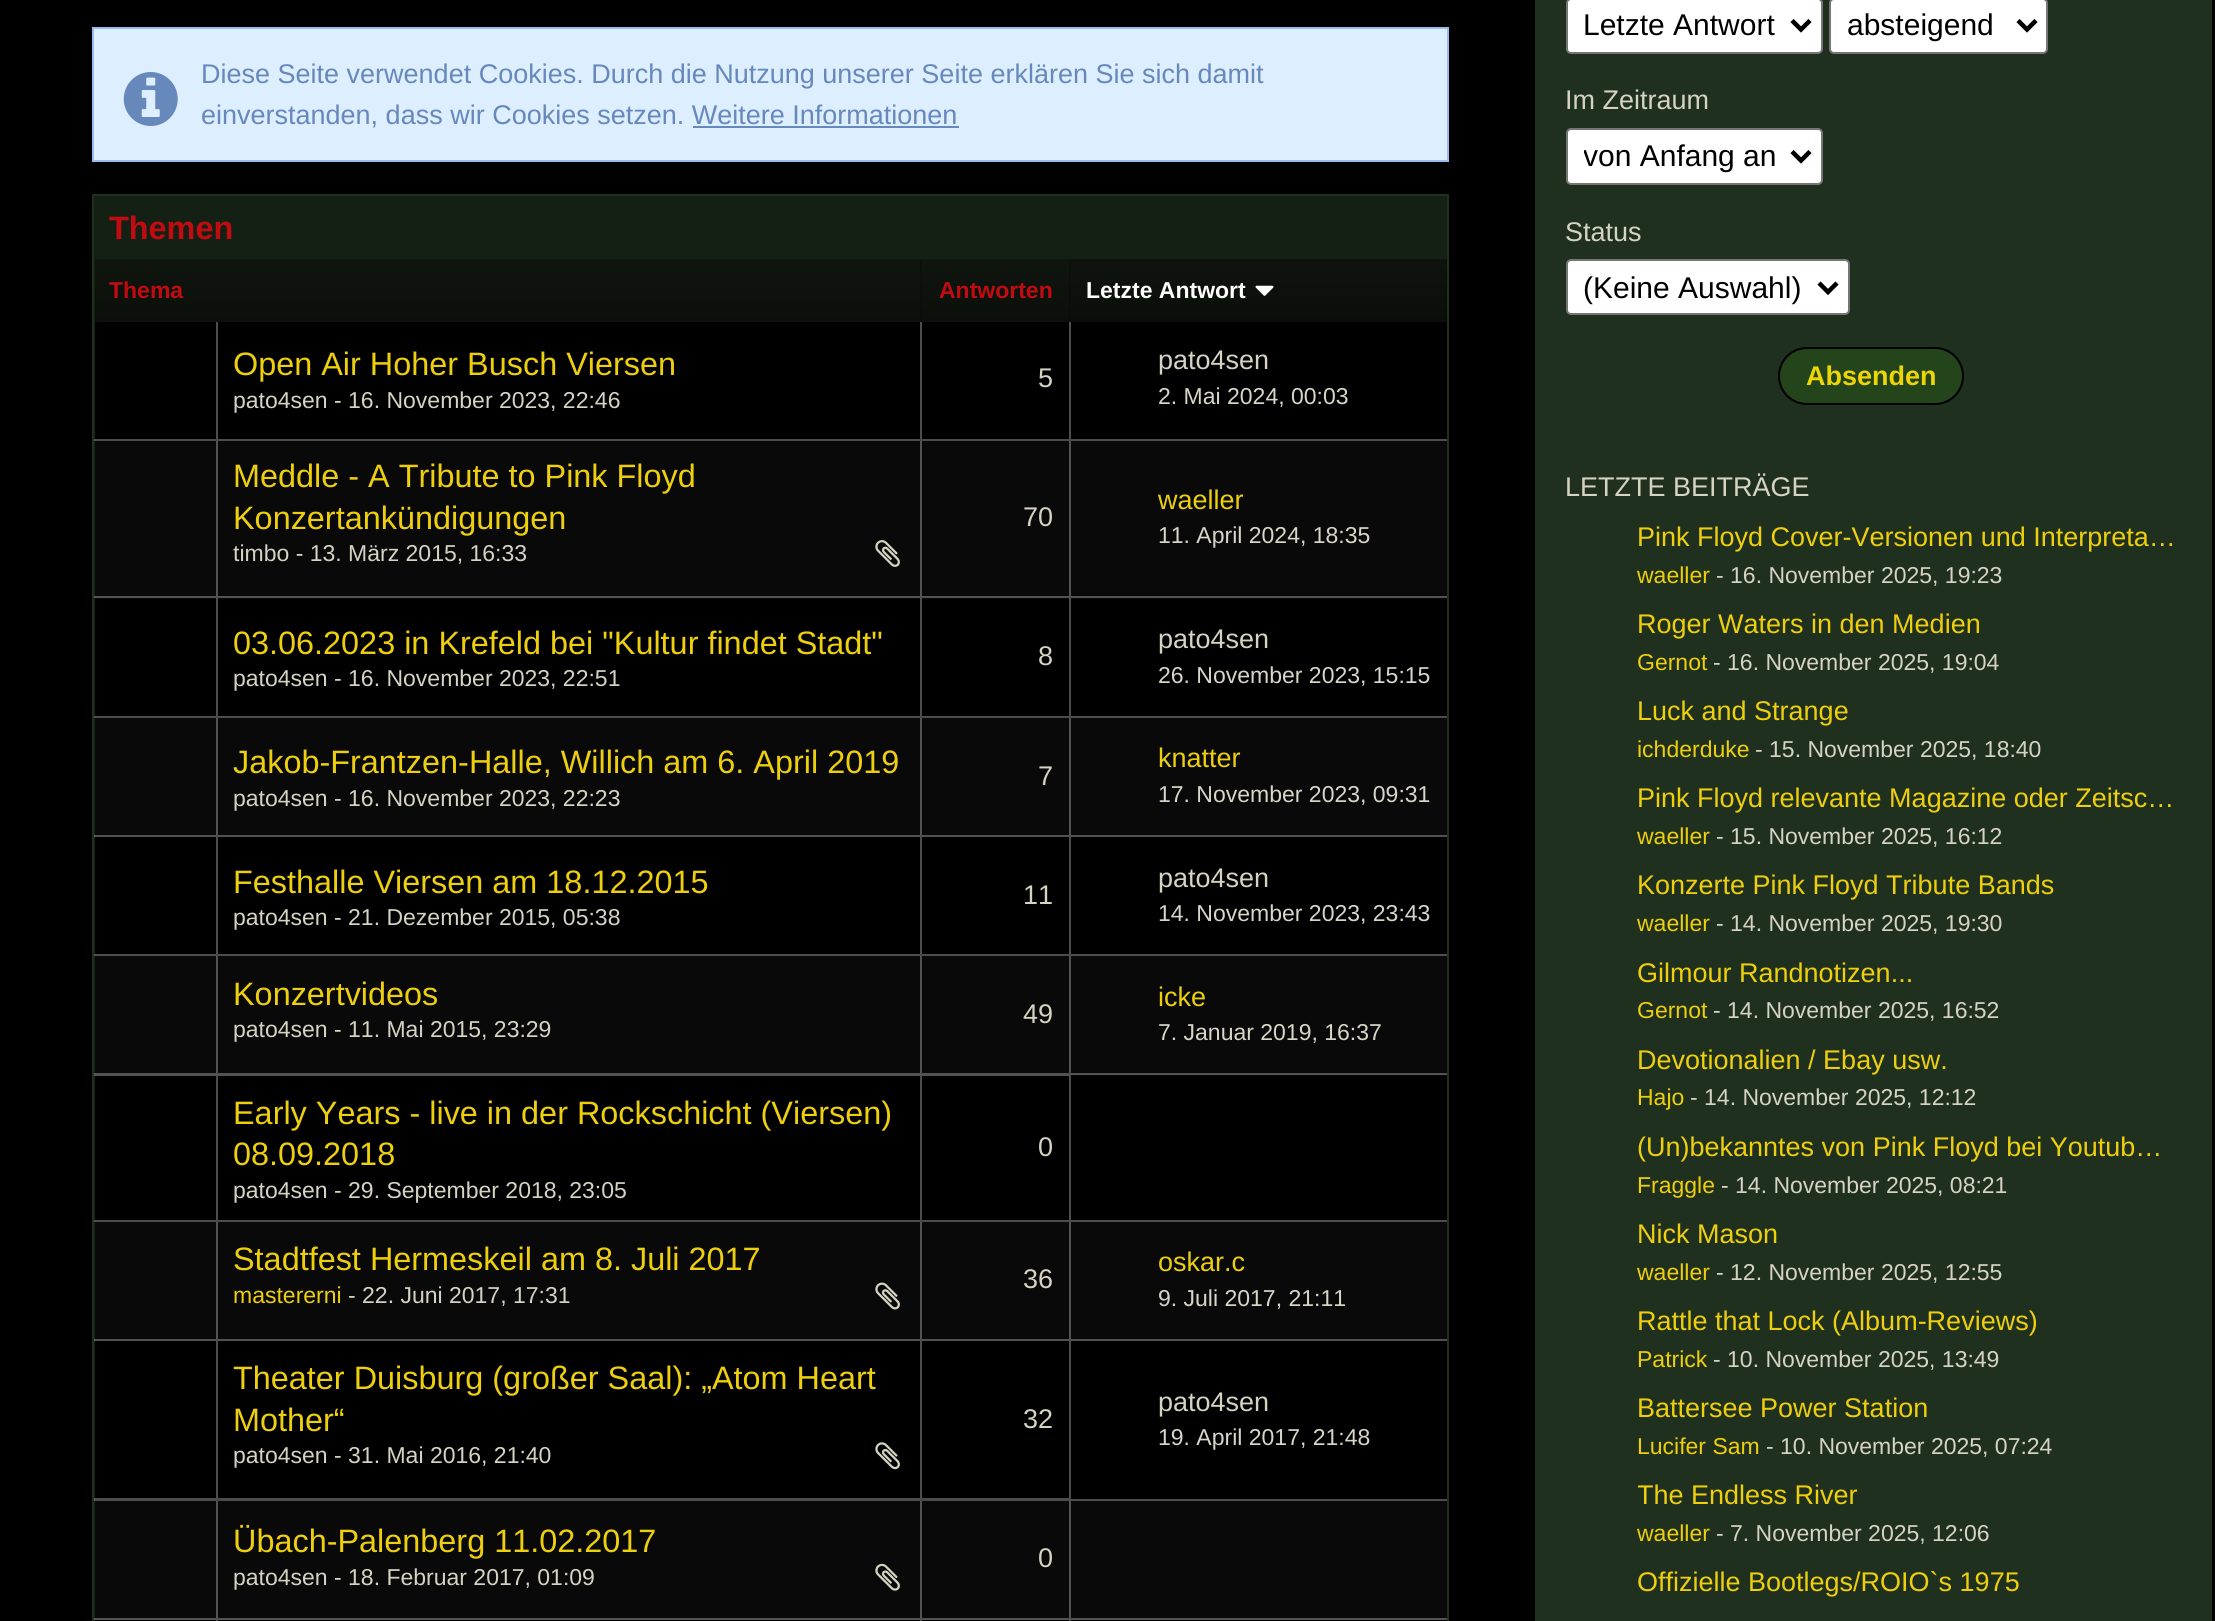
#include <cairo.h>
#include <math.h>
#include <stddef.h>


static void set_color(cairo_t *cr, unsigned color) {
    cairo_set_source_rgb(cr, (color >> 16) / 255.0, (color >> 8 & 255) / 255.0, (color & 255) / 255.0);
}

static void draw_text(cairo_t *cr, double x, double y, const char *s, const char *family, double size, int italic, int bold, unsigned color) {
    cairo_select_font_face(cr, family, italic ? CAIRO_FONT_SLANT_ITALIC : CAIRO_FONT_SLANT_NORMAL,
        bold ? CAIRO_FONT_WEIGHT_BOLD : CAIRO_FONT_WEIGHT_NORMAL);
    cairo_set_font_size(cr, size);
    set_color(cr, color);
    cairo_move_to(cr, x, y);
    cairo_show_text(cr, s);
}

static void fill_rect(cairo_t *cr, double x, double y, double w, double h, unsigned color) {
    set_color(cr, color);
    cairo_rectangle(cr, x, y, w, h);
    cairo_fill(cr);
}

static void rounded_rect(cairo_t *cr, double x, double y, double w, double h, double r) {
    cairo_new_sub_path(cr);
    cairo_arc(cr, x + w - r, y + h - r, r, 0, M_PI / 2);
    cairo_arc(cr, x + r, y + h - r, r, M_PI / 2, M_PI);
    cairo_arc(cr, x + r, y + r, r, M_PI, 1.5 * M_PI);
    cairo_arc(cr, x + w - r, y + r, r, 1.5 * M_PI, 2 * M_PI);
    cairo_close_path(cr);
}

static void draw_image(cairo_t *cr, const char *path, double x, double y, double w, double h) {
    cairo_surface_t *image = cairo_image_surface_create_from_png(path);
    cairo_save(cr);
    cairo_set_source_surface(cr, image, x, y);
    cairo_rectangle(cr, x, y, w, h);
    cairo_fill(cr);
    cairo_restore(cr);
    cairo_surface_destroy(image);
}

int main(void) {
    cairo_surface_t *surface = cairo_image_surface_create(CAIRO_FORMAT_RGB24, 2215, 1621);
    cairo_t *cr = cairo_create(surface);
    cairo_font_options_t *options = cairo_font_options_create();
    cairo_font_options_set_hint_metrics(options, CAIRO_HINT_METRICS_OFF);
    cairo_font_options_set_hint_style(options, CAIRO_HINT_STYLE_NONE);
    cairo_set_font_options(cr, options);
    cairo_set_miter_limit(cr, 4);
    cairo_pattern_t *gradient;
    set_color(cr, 0x000000);
    cairo_paint(cr);
    fill_rect(cr, 1535, 0, 677, 1621, 0x20301E);
    set_color(cr, 0xDDEEFF);
    cairo_rectangle(cr, 93, 28, 1355, 133);
    cairo_fill_preserve(cr);
    set_color(cr, 0x99BBEE);
    cairo_stroke(cr);
    draw_image(cr, "assets/img1.png", 123, 72, 55, 54);
    draw_text(cr, 201, 83, "Diese Seite verwendet Cookies. Durch die Nutzung unserer Seite erklären Sie sich damit", "Liberation Sans", 27, 0, 0, 0x6688BB);
    draw_text(cr, 201, 124, "einverstanden, dass wir Cookies setzen. Weitere Informationen", "Liberation Sans", 27, 0, 0, 0x6688BB);
    fill_rect(cr, 693, 126, 266, 2, 0x6688BB);
    set_color(cr, 0x152014);
    cairo_rectangle(cr, 93, 195, 1355, 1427);
    cairo_fill_preserve(cr);
    set_color(cr, 0x20301E);
    cairo_stroke(cr);
    draw_text(cr, 109, 239, "Themen", "Liberation Sans", 32.4, 0, 1, 0xC20B10);
    gradient = cairo_pattern_create_linear(507, 259, 507, 322);
    cairo_pattern_add_color_stop_rgba(gradient, 0, 0.059, 0.086, 0.055, 1);
    cairo_pattern_add_color_stop_rgba(gradient, 1, 0.043, 0.059, 0.039, 1);
    cairo_set_source(cr, gradient);
    cairo_pattern_destroy(gradient);
    cairo_rectangle(cr, 95, 259, 828, 63);
    cairo_fill(cr);
    gradient = cairo_pattern_create_linear(507, 259, 507, 322);
    cairo_pattern_add_color_stop_rgba(gradient, 0, 0.047, 0.071, 0.043, 1);
    cairo_pattern_add_color_stop_rgba(gradient, 1, 0.035, 0.047, 0.031, 1);
    cairo_set_source(cr, gradient);
    cairo_pattern_destroy(gradient);
    cairo_rectangle(cr, 920, 259, 2, 63);
    cairo_fill(cr);
    draw_text(cr, 109, 298, "Thema", "Liberation Sans", 23, 0, 1, 0xC20B10);
    gradient = cairo_pattern_create_linear(996, 259, 996, 322);
    cairo_pattern_add_color_stop_rgba(gradient, 0, 0.059, 0.086, 0.055, 1);
    cairo_pattern_add_color_stop_rgba(gradient, 1, 0.043, 0.059, 0.039, 1);
    cairo_set_source(cr, gradient);
    cairo_pattern_destroy(gradient);
    cairo_rectangle(cr, 923, 259, 146, 63);
    cairo_fill(cr);
    gradient = cairo_pattern_create_linear(996, 259, 996, 322);
    cairo_pattern_add_color_stop_rgba(gradient, 0, 0.047, 0.071, 0.043, 1);
    cairo_pattern_add_color_stop_rgba(gradient, 1, 0.035, 0.047, 0.031, 1);
    cairo_set_source(cr, gradient);
    cairo_pattern_destroy(gradient);
    cairo_rectangle(cr, 1069, 259, 2, 63);
    cairo_fill(cr);
    draw_text(cr, 939, 298, "Antworten", "Liberation Sans", 23, 0, 1, 0xC20B10);
    gradient = cairo_pattern_create_linear(1258, 259, 1258, 322);
    cairo_pattern_add_color_stop_rgba(gradient, 0, 0.055, 0.078, 0.051, 1);
    cairo_pattern_add_color_stop_rgba(gradient, 1, 0.039, 0.055, 0.035, 1);
    cairo_set_source(cr, gradient);
    cairo_pattern_destroy(gradient);
    cairo_rectangle(cr, 1071, 259, 374, 63);
    cairo_fill(cr);
    gradient = cairo_pattern_create_linear(1258, 259, 1258, 322);
    cairo_pattern_add_color_stop_rgba(gradient, 0, 0.047, 0.071, 0.043, 1);
    cairo_pattern_add_color_stop_rgba(gradient, 1, 0.035, 0.047, 0.031, 1);
    cairo_set_source(cr, gradient);
    cairo_pattern_destroy(gradient);
    cairo_rectangle(cr, 1445, 259, 2, 63);
    cairo_fill(cr);
    draw_text(cr, 1086, 298, "Letzte Antwort", "Liberation Sans", 23, 0, 1, 0xFFFFFF);
    draw_image(cr, "assets/img2.png", 1255, 285, 19, 11);
    fill_rect(cr, 95, 322, 976, 119, 0x000000);
    set_color(cr, 0x4D4D4D);
    cairo_new_path(cr);
    cairo_move_to(cr, 218, 322);
    cairo_line_to(cr, 218, 441);
    cairo_line_to(cr, 216, 439);
    cairo_line_to(cr, 216, 322);
    cairo_close_path(cr);
    cairo_fill(cr);
    cairo_set_source_rgba(cr, 1, 1, 1, 0.3);
    cairo_new_path(cr);
    cairo_move_to(cr, 218, 441);
    cairo_line_to(cr, 94, 441);
    cairo_line_to(cr, 94, 439);
    cairo_line_to(cr, 216, 439);
    cairo_close_path(cr);
    cairo_fill(cr);
    fill_rect(cr, 1071, 322, 376, 117, 0x000000);
    fill_rect(cr, 1071, 439, 376, 2, 0x4D4D4D);
    draw_text(cr, 1158, 369, "pato4sen", "Liberation Sans", 27, 0, 0, 0xD6D3C2);
    draw_text(cr, 1158, 404, "2. Mai 2024, 00:03", "Liberation Sans", 23, 0, 0, 0xD8D6C8);
    set_color(cr, 0x4D4D4D);
    cairo_new_path(cr);
    cairo_move_to(cr, 922, 322);
    cairo_line_to(cr, 922, 441);
    cairo_line_to(cr, 920, 439);
    cairo_line_to(cr, 920, 322);
    cairo_close_path(cr);
    cairo_fill(cr);
    cairo_set_source_rgba(cr, 1, 1, 1, 0.3);
    cairo_new_path(cr);
    cairo_move_to(cr, 922, 441);
    cairo_line_to(cr, 218, 441);
    cairo_line_to(cr, 218, 439);
    cairo_line_to(cr, 920, 439);
    cairo_close_path(cr);
    cairo_fill(cr);
    draw_text(cr, 233, 375, "Open Air Hoher Busch Viersen", "Liberation Sans", 32.4, 0, 0, 0xEDCF0E);
    draw_text(cr, 233, 408, "pato4sen - 16. November 2023, 22:46", "Liberation Sans", 23, 0, 0, 0xD6D3C2);
    set_color(cr, 0x4D4D4D);
    cairo_new_path(cr);
    cairo_move_to(cr, 1071, 322);
    cairo_line_to(cr, 1071, 441);
    cairo_line_to(cr, 1069, 439);
    cairo_line_to(cr, 1069, 322);
    cairo_close_path(cr);
    cairo_fill(cr);
    cairo_set_source_rgba(cr, 1, 1, 1, 0.3);
    cairo_new_path(cr);
    cairo_move_to(cr, 1071, 441);
    cairo_line_to(cr, 922, 441);
    cairo_line_to(cr, 922, 439);
    cairo_line_to(cr, 1069, 439);
    cairo_close_path(cr);
    cairo_fill(cr);
    draw_text(cr, 1038, 387, "5", "Liberation Sans", 27, 0, 0, 0xD6D3C2);
    fill_rect(cr, 95, 441, 1352, 158, 0x090909);
    set_color(cr, 0x535353);
    cairo_new_path(cr);
    cairo_move_to(cr, 218, 441);
    cairo_line_to(cr, 218, 598);
    cairo_line_to(cr, 216, 596);
    cairo_line_to(cr, 216, 441);
    cairo_close_path(cr);
    cairo_fill(cr);
    cairo_set_source_rgba(cr, 1, 1, 1, 0.3);
    cairo_new_path(cr);
    cairo_move_to(cr, 218, 598);
    cairo_line_to(cr, 94, 598);
    cairo_line_to(cr, 94, 596);
    cairo_line_to(cr, 216, 596);
    cairo_close_path(cr);
    cairo_fill(cr);
    set_color(cr, 0x535353);
    cairo_new_path(cr);
    cairo_move_to(cr, 922, 441);
    cairo_line_to(cr, 922, 598);
    cairo_line_to(cr, 920, 596);
    cairo_line_to(cr, 920, 441);
    cairo_close_path(cr);
    cairo_fill(cr);
    cairo_set_source_rgba(cr, 1, 1, 1, 0.3);
    cairo_new_path(cr);
    cairo_move_to(cr, 922, 598);
    cairo_line_to(cr, 218, 598);
    cairo_line_to(cr, 218, 596);
    cairo_line_to(cr, 920, 596);
    cairo_close_path(cr);
    cairo_fill(cr);
    draw_text(cr, 233, 487, "Meddle - A Tribute to Pink Floyd", "Liberation Sans", 32.4, 0, 0, 0xEDCF0E);
    draw_text(cr, 233, 529, "Konzertankündigungen", "Liberation Sans", 32.4, 0, 0, 0xEDCF0E);
    draw_text(cr, 233, 561, "timbo - 13. März 2015, 16:33", "Liberation Sans", 23, 0, 0, 0xD6D3C2);
    draw_image(cr, "assets/img3.png", 875, 540, 25, 27);
    set_color(cr, 0x535353);
    cairo_new_path(cr);
    cairo_move_to(cr, 1071, 441);
    cairo_line_to(cr, 1071, 598);
    cairo_line_to(cr, 1069, 596);
    cairo_line_to(cr, 1069, 441);
    cairo_close_path(cr);
    cairo_fill(cr);
    cairo_set_source_rgba(cr, 1, 1, 1, 0.3);
    cairo_new_path(cr);
    cairo_move_to(cr, 1071, 598);
    cairo_line_to(cr, 922, 598);
    cairo_line_to(cr, 922, 596);
    cairo_line_to(cr, 1069, 596);
    cairo_close_path(cr);
    cairo_fill(cr);
    draw_text(cr, 1023, 526, "70", "Liberation Sans", 27, 0, 0, 0xD6D3C2);
    fill_rect(cr, 1071, 596, 376, 2, 0x535353);
    draw_text(cr, 1158, 509, "waeller", "Liberation Sans", 27, 0, 0, 0xEDCF0E);
    draw_text(cr, 1158, 543, "11. April 2024, 18:35", "Liberation Sans", 23, 0, 0, 0xD8D6C8);
    fill_rect(cr, 95, 599, 976, 119, 0x000000);
    cairo_set_source_rgba(cr, 1, 1, 1, 0.3);
    cairo_new_path(cr);
    cairo_move_to(cr, 218, 598);
    cairo_line_to(cr, 218, 718);
    cairo_line_to(cr, 216, 716);
    cairo_line_to(cr, 216, 598);
    cairo_close_path(cr);
    cairo_fill(cr);
    cairo_new_path(cr);
    cairo_move_to(cr, 218, 718);
    cairo_line_to(cr, 94, 718);
    cairo_line_to(cr, 94, 716);
    cairo_line_to(cr, 216, 716);
    cairo_close_path(cr);
    cairo_fill(cr);
    fill_rect(cr, 1071, 599, 376, 117, 0x000000);
    fill_rect(cr, 1071, 716, 376, 2, 0x4D4D4D);
    draw_text(cr, 1158, 648, "pato4sen", "Liberation Sans", 27, 0, 0, 0xD6D3C2);
    draw_text(cr, 1158, 683, "26. November 2023, 15:15", "Liberation Sans", 23, 0, 0, 0xD8D6C8);
    cairo_set_source_rgba(cr, 1, 1, 1, 0.3);
    cairo_new_path(cr);
    cairo_move_to(cr, 922, 598);
    cairo_line_to(cr, 922, 718);
    cairo_line_to(cr, 920, 716);
    cairo_line_to(cr, 920, 598);
    cairo_close_path(cr);
    cairo_fill(cr);
    cairo_new_path(cr);
    cairo_move_to(cr, 922, 718);
    cairo_line_to(cr, 218, 718);
    cairo_line_to(cr, 218, 716);
    cairo_line_to(cr, 920, 716);
    cairo_close_path(cr);
    cairo_fill(cr);
    draw_text(cr, 233, 654, "03.06.2023 in Krefeld bei \"Kultur findet Stadt\"", "Liberation Sans", 32.4, 0, 0, 0xEDCF0E);
    draw_text(cr, 233, 686, "pato4sen - 16. November 2023, 22:51", "Liberation Sans", 23, 0, 0, 0xD6D3C2);
    cairo_set_source_rgba(cr, 1, 1, 1, 0.3);
    cairo_new_path(cr);
    cairo_move_to(cr, 1071, 598);
    cairo_line_to(cr, 1071, 718);
    cairo_line_to(cr, 1069, 716);
    cairo_line_to(cr, 1069, 598);
    cairo_close_path(cr);
    cairo_fill(cr);
    cairo_new_path(cr);
    cairo_move_to(cr, 1071, 718);
    cairo_line_to(cr, 922, 718);
    cairo_line_to(cr, 922, 716);
    cairo_line_to(cr, 1069, 716);
    cairo_close_path(cr);
    cairo_fill(cr);
    draw_text(cr, 1038, 665, "8", "Liberation Sans", 27, 0, 0, 0xD6D3C2);
    fill_rect(cr, 95, 718, 976, 119, 0x090909);
    set_color(cr, 0x535353);
    cairo_new_path(cr);
    cairo_move_to(cr, 218, 718);
    cairo_line_to(cr, 218, 837);
    cairo_line_to(cr, 216, 835);
    cairo_line_to(cr, 216, 718);
    cairo_close_path(cr);
    cairo_fill(cr);
    cairo_set_source_rgba(cr, 1, 1, 1, 0.3);
    cairo_new_path(cr);
    cairo_move_to(cr, 218, 837);
    cairo_line_to(cr, 94, 837);
    cairo_line_to(cr, 94, 835);
    cairo_line_to(cr, 216, 835);
    cairo_close_path(cr);
    cairo_fill(cr);
    fill_rect(cr, 1071, 718, 376, 117, 0x090909);
    fill_rect(cr, 1071, 835, 376, 2, 0x535353);
    draw_text(cr, 1158, 767, "knatter", "Liberation Sans", 27, 0, 0, 0xEDCF0E);
    draw_text(cr, 1158, 802, "17. November 2023, 09:31", "Liberation Sans", 23, 0, 0, 0xD8D6C8);
    set_color(cr, 0x535353);
    cairo_new_path(cr);
    cairo_move_to(cr, 922, 718);
    cairo_line_to(cr, 922, 837);
    cairo_line_to(cr, 920, 835);
    cairo_line_to(cr, 920, 718);
    cairo_close_path(cr);
    cairo_fill(cr);
    cairo_set_source_rgba(cr, 1, 1, 1, 0.3);
    cairo_new_path(cr);
    cairo_move_to(cr, 922, 837);
    cairo_line_to(cr, 218, 837);
    cairo_line_to(cr, 218, 835);
    cairo_line_to(cr, 920, 835);
    cairo_close_path(cr);
    cairo_fill(cr);
    draw_text(cr, 233, 773, "Jakob-Frantzen-Halle, Willich am 6. April 2019", "Liberation Sans", 32.4, 0, 0, 0xEDCF0E);
    draw_text(cr, 233, 806, "pato4sen - 16. November 2023, 22:23", "Liberation Sans", 23, 0, 0, 0xD6D3C2);
    set_color(cr, 0x535353);
    cairo_new_path(cr);
    cairo_move_to(cr, 1071, 718);
    cairo_line_to(cr, 1071, 837);
    cairo_line_to(cr, 1069, 835);
    cairo_line_to(cr, 1069, 718);
    cairo_close_path(cr);
    cairo_fill(cr);
    cairo_set_source_rgba(cr, 1, 1, 1, 0.3);
    cairo_new_path(cr);
    cairo_move_to(cr, 1071, 837);
    cairo_line_to(cr, 922, 837);
    cairo_line_to(cr, 922, 835);
    cairo_line_to(cr, 1069, 835);
    cairo_close_path(cr);
    cairo_fill(cr);
    draw_text(cr, 1038, 785, "7", "Liberation Sans", 27, 0, 0, 0xD6D3C2);
    fill_rect(cr, 95, 837, 976, 119, 0x000000);
    set_color(cr, 0x4D4D4D);
    cairo_new_path(cr);
    cairo_move_to(cr, 218, 837);
    cairo_line_to(cr, 218, 956);
    cairo_line_to(cr, 216, 954);
    cairo_line_to(cr, 216, 837);
    cairo_close_path(cr);
    cairo_fill(cr);
    cairo_set_source_rgba(cr, 1, 1, 1, 0.3);
    cairo_new_path(cr);
    cairo_move_to(cr, 218, 956);
    cairo_line_to(cr, 94, 956);
    cairo_line_to(cr, 94, 954);
    cairo_line_to(cr, 216, 954);
    cairo_close_path(cr);
    cairo_fill(cr);
    fill_rect(cr, 1071, 837, 376, 117, 0x000000);
    fill_rect(cr, 1071, 954, 376, 2, 0x4D4D4D);
    draw_text(cr, 1158, 887, "pato4sen", "Liberation Sans", 27, 0, 0, 0xD6D3C2);
    draw_text(cr, 1158, 921, "14. November 2023, 23:43", "Liberation Sans", 23, 0, 0, 0xD8D6C8);
    set_color(cr, 0x4D4D4D);
    cairo_new_path(cr);
    cairo_move_to(cr, 922, 837);
    cairo_line_to(cr, 922, 956);
    cairo_line_to(cr, 920, 954);
    cairo_line_to(cr, 920, 837);
    cairo_close_path(cr);
    cairo_fill(cr);
    cairo_set_source_rgba(cr, 1, 1, 1, 0.3);
    cairo_new_path(cr);
    cairo_move_to(cr, 922, 956);
    cairo_line_to(cr, 218, 956);
    cairo_line_to(cr, 218, 954);
    cairo_line_to(cr, 920, 954);
    cairo_close_path(cr);
    cairo_fill(cr);
    draw_text(cr, 233, 893, "Festhalle Viersen am 18.12.2015", "Liberation Sans", 32.4, 0, 0, 0xEDCF0E);
    draw_text(cr, 233, 925, "pato4sen - 21. Dezember 2015, 05:38", "Liberation Sans", 23, 0, 0, 0xD6D3C2);
    set_color(cr, 0x4D4D4D);
    cairo_new_path(cr);
    cairo_move_to(cr, 1071, 837);
    cairo_line_to(cr, 1071, 956);
    cairo_line_to(cr, 1069, 954);
    cairo_line_to(cr, 1069, 837);
    cairo_close_path(cr);
    cairo_fill(cr);
    cairo_set_source_rgba(cr, 1, 1, 1, 0.3);
    cairo_new_path(cr);
    cairo_move_to(cr, 1071, 956);
    cairo_line_to(cr, 922, 956);
    cairo_line_to(cr, 922, 954);
    cairo_line_to(cr, 1069, 954);
    cairo_close_path(cr);
    cairo_fill(cr);
    draw_text(cr, 1023, 904, "11", "Liberation Sans", 27, 0, 0, 0xD6D3C2);
    fill_rect(cr, 95, 956, 1352, 120, 0x090909);
    set_color(cr, 0x535353);
    cairo_new_path(cr);
    cairo_move_to(cr, 218, 956);
    cairo_line_to(cr, 218, 1076);
    cairo_line_to(cr, 216, 1073);
    cairo_line_to(cr, 216, 956);
    cairo_close_path(cr);
    cairo_fill(cr);
    cairo_set_source_rgba(cr, 1, 1, 1, 0.3);
    cairo_new_path(cr);
    cairo_move_to(cr, 218, 1076);
    cairo_line_to(cr, 94, 1076);
    cairo_line_to(cr, 94, 1073);
    cairo_line_to(cr, 216, 1073);
    cairo_close_path(cr);
    cairo_fill(cr);
    set_color(cr, 0x535353);
    cairo_new_path(cr);
    cairo_move_to(cr, 922, 956);
    cairo_line_to(cr, 922, 1076);
    cairo_line_to(cr, 920, 1073);
    cairo_line_to(cr, 920, 956);
    cairo_close_path(cr);
    cairo_fill(cr);
    cairo_set_source_rgba(cr, 1, 1, 1, 0.3);
    cairo_new_path(cr);
    cairo_move_to(cr, 922, 1076);
    cairo_line_to(cr, 218, 1076);
    cairo_line_to(cr, 218, 1073);
    cairo_line_to(cr, 920, 1073);
    cairo_close_path(cr);
    cairo_fill(cr);
    draw_text(cr, 233, 1005, "Konzertvideos", "Liberation Sans", 32.4, 0, 0, 0xEDCF0E);
    draw_text(cr, 233, 1037, "pato4sen - 11. Mai 2015, 23:29", "Liberation Sans", 23, 0, 0, 0xD6D3C2);
    set_color(cr, 0x535353);
    cairo_new_path(cr);
    cairo_move_to(cr, 1071, 956);
    cairo_line_to(cr, 1071, 1076);
    cairo_line_to(cr, 1069, 1073);
    cairo_line_to(cr, 1069, 956);
    cairo_close_path(cr);
    cairo_fill(cr);
    cairo_set_source_rgba(cr, 1, 1, 1, 0.3);
    cairo_new_path(cr);
    cairo_move_to(cr, 1071, 1076);
    cairo_line_to(cr, 922, 1076);
    cairo_line_to(cr, 922, 1073);
    cairo_line_to(cr, 1069, 1073);
    cairo_close_path(cr);
    cairo_fill(cr);
    draw_text(cr, 1023, 1023, "49", "Liberation Sans", 27, 0, 0, 0xD6D3C2);
    fill_rect(cr, 1071, 1073, 376, 2, 0x535353);
    draw_text(cr, 1158, 1006, "icke", "Liberation Sans", 27, 0, 0, 0xEDCF0E);
    draw_text(cr, 1158, 1040, "7. Januar 2019, 16:37", "Liberation Sans", 23, 0, 0, 0xD8D6C8);
    fill_rect(cr, 95, 1076, 976, 146, 0x000000);
    set_color(cr, 0x4D4D4D);
    cairo_new_path(cr);
    cairo_move_to(cr, 218, 1076);
    cairo_line_to(cr, 218, 1222);
    cairo_line_to(cr, 216, 1220);
    cairo_line_to(cr, 216, 1076);
    cairo_close_path(cr);
    cairo_fill(cr);
    cairo_set_source_rgba(cr, 1, 1, 1, 0.3);
    cairo_new_path(cr);
    cairo_move_to(cr, 218, 1222);
    cairo_line_to(cr, 94, 1222);
    cairo_line_to(cr, 94, 1220);
    cairo_line_to(cr, 216, 1220);
    cairo_close_path(cr);
    cairo_fill(cr);
    fill_rect(cr, 1071, 1076, 376, 144, 0x000000);
    fill_rect(cr, 1071, 1220, 376, 2, 0x4D4D4D);
    cairo_new_path(cr);
    cairo_move_to(cr, 922, 1076);
    cairo_line_to(cr, 922, 1222);
    cairo_line_to(cr, 920, 1220);
    cairo_line_to(cr, 920, 1076);
    cairo_close_path(cr);
    cairo_fill(cr);
    cairo_set_source_rgba(cr, 1, 1, 1, 0.3);
    cairo_new_path(cr);
    cairo_move_to(cr, 922, 1222);
    cairo_line_to(cr, 218, 1222);
    cairo_line_to(cr, 218, 1220);
    cairo_line_to(cr, 920, 1220);
    cairo_close_path(cr);
    cairo_fill(cr);
    draw_text(cr, 233, 1124, "Early Years - live in der Rockschicht (Viersen)", "Liberation Sans", 32.4, 0, 0, 0xEDCF0E);
    draw_text(cr, 233, 1165, "08.09.2018", "Liberation Sans", 32.4, 0, 0, 0xEDCF0E);
    draw_text(cr, 233, 1198, "pato4sen - 29. September 2018, 23:05", "Liberation Sans", 23, 0, 0, 0xD6D3C2);
    set_color(cr, 0x4D4D4D);
    cairo_new_path(cr);
    cairo_move_to(cr, 1071, 1076);
    cairo_line_to(cr, 1071, 1222);
    cairo_line_to(cr, 1069, 1220);
    cairo_line_to(cr, 1069, 1076);
    cairo_close_path(cr);
    cairo_fill(cr);
    cairo_set_source_rgba(cr, 1, 1, 1, 0.3);
    cairo_new_path(cr);
    cairo_move_to(cr, 1071, 1222);
    cairo_line_to(cr, 922, 1222);
    cairo_line_to(cr, 922, 1220);
    cairo_line_to(cr, 1069, 1220);
    cairo_close_path(cr);
    cairo_fill(cr);
    draw_text(cr, 1038, 1156, "0", "Liberation Sans", 27, 0, 0, 0xD6D3C2);
    fill_rect(cr, 95, 1222, 976, 119, 0x090909);
    set_color(cr, 0x535353);
    cairo_new_path(cr);
    cairo_move_to(cr, 218, 1222);
    cairo_line_to(cr, 218, 1341);
    cairo_line_to(cr, 216, 1339);
    cairo_line_to(cr, 216, 1222);
    cairo_close_path(cr);
    cairo_fill(cr);
    cairo_set_source_rgba(cr, 1, 1, 1, 0.3);
    cairo_new_path(cr);
    cairo_move_to(cr, 218, 1341);
    cairo_line_to(cr, 94, 1341);
    cairo_line_to(cr, 94, 1339);
    cairo_line_to(cr, 216, 1339);
    cairo_close_path(cr);
    cairo_fill(cr);
    set_color(cr, 0x535353);
    cairo_new_path(cr);
    cairo_move_to(cr, 922, 1222);
    cairo_line_to(cr, 922, 1341);
    cairo_line_to(cr, 920, 1339);
    cairo_line_to(cr, 920, 1222);
    cairo_close_path(cr);
    cairo_fill(cr);
    cairo_set_source_rgba(cr, 1, 1, 1, 0.3);
    cairo_new_path(cr);
    cairo_move_to(cr, 922, 1341);
    cairo_line_to(cr, 218, 1341);
    cairo_line_to(cr, 218, 1339);
    cairo_line_to(cr, 920, 1339);
    cairo_close_path(cr);
    cairo_fill(cr);
    draw_text(cr, 233, 1270, "Stadtfest Hermeskeil am 8. Juli 2017", "Liberation Sans", 32.4, 0, 0, 0xEDCF0E);
    draw_text(cr, 233, 1303, "mastererni", "Liberation Sans", 23, 0, 0, 0xEDCF0E);
    draw_text(cr, 348, 1303, "- 22. Juni 2017, 17:31", "Liberation Sans", 23, 0, 0, 0xD6D3C2);
    draw_image(cr, "assets/img4.png", 875, 1282, 25, 28);
    set_color(cr, 0x535353);
    cairo_new_path(cr);
    cairo_move_to(cr, 1071, 1222);
    cairo_line_to(cr, 1071, 1341);
    cairo_line_to(cr, 1069, 1339);
    cairo_line_to(cr, 1069, 1222);
    cairo_close_path(cr);
    cairo_fill(cr);
    cairo_set_source_rgba(cr, 1, 1, 1, 0.3);
    cairo_new_path(cr);
    cairo_move_to(cr, 1071, 1341);
    cairo_line_to(cr, 922, 1341);
    cairo_line_to(cr, 922, 1339);
    cairo_line_to(cr, 1069, 1339);
    cairo_close_path(cr);
    cairo_fill(cr);
    draw_text(cr, 1023, 1288, "36", "Liberation Sans", 27, 0, 0, 0xD6D3C2);
    fill_rect(cr, 1071, 1222, 376, 117, 0x090909);
    fill_rect(cr, 1071, 1339, 376, 2, 0x535353);
    draw_text(cr, 1158, 1271, "oskar.c", "Liberation Sans", 27, 0, 0, 0xEDCF0E);
    draw_text(cr, 1158, 1306, "9. Juli 2017, 21:11", "Liberation Sans", 23, 0, 0, 0xD8D6C8);
    fill_rect(cr, 95, 1341, 976, 160, 0x000000);
    set_color(cr, 0x4D4D4D);
    cairo_new_path(cr);
    cairo_move_to(cr, 218, 1341);
    cairo_line_to(cr, 218, 1501);
    cairo_line_to(cr, 216, 1498);
    cairo_line_to(cr, 216, 1341);
    cairo_close_path(cr);
    cairo_fill(cr);
    cairo_set_source_rgba(cr, 1, 1, 1, 0.3);
    cairo_new_path(cr);
    cairo_move_to(cr, 218, 1501);
    cairo_line_to(cr, 94, 1501);
    cairo_line_to(cr, 94, 1498);
    cairo_line_to(cr, 216, 1498);
    cairo_close_path(cr);
    cairo_fill(cr);
    set_color(cr, 0x4D4D4D);
    cairo_new_path(cr);
    cairo_move_to(cr, 922, 1341);
    cairo_line_to(cr, 922, 1501);
    cairo_line_to(cr, 920, 1498);
    cairo_line_to(cr, 920, 1341);
    cairo_close_path(cr);
    cairo_fill(cr);
    cairo_set_source_rgba(cr, 1, 1, 1, 0.3);
    cairo_new_path(cr);
    cairo_move_to(cr, 922, 1501);
    cairo_line_to(cr, 218, 1501);
    cairo_line_to(cr, 218, 1498);
    cairo_line_to(cr, 920, 1498);
    cairo_close_path(cr);
    cairo_fill(cr);
    draw_text(cr, 233, 1389, "Theater Duisburg (großer Saal): „Atom Heart", "Liberation Sans", 32.4, 0, 0, 0xEDCF0E);
    draw_text(cr, 233, 1431, "Mother“", "Liberation Sans", 32.4, 0, 0, 0xEDCF0E);
    draw_text(cr, 233, 1463, "pato4sen - 31. Mai 2016, 21:40", "Liberation Sans", 23, 0, 0, 0xD6D3C2);
    draw_image(cr, "assets/img5.png", 875, 1442, 25, 28);
    set_color(cr, 0x4D4D4D);
    cairo_new_path(cr);
    cairo_move_to(cr, 1071, 1341);
    cairo_line_to(cr, 1071, 1501);
    cairo_line_to(cr, 1069, 1498);
    cairo_line_to(cr, 1069, 1341);
    cairo_close_path(cr);
    cairo_fill(cr);
    cairo_set_source_rgba(cr, 1, 1, 1, 0.3);
    cairo_new_path(cr);
    cairo_move_to(cr, 1071, 1501);
    cairo_line_to(cr, 922, 1501);
    cairo_line_to(cr, 922, 1498);
    cairo_line_to(cr, 1069, 1498);
    cairo_close_path(cr);
    cairo_fill(cr);
    draw_text(cr, 1023, 1428, "32", "Liberation Sans", 27, 0, 0, 0xD6D3C2);
    fill_rect(cr, 1071, 1341, 376, 158, 0x000000);
    fill_rect(cr, 1071, 1499, 376, 2, 0x4D4D4D);
    draw_text(cr, 1158, 1411, "pato4sen", "Liberation Sans", 27, 0, 0, 0xD6D3C2);
    draw_text(cr, 1158, 1445, "19. April 2017, 21:48", "Liberation Sans", 23, 0, 0, 0xD8D6C8);
    fill_rect(cr, 95, 1501, 976, 119, 0x090909);
    set_color(cr, 0x535353);
    cairo_new_path(cr);
    cairo_move_to(cr, 218, 1501);
    cairo_line_to(cr, 218, 1620);
    cairo_line_to(cr, 216, 1618);
    cairo_line_to(cr, 216, 1501);
    cairo_close_path(cr);
    cairo_fill(cr);
    cairo_set_source_rgba(cr, 1, 1, 1, 0.3);
    cairo_new_path(cr);
    cairo_move_to(cr, 218, 1620);
    cairo_line_to(cr, 94, 1620);
    cairo_line_to(cr, 94, 1618);
    cairo_line_to(cr, 216, 1618);
    cairo_close_path(cr);
    cairo_fill(cr);
    fill_rect(cr, 1071, 1501, 376, 117, 0x090909);
    fill_rect(cr, 1071, 1618, 376, 2, 0x535353);
    cairo_new_path(cr);
    cairo_move_to(cr, 922, 1501);
    cairo_line_to(cr, 922, 1620);
    cairo_line_to(cr, 920, 1618);
    cairo_line_to(cr, 920, 1501);
    cairo_close_path(cr);
    cairo_fill(cr);
    cairo_set_source_rgba(cr, 1, 1, 1, 0.3);
    cairo_new_path(cr);
    cairo_move_to(cr, 922, 1620);
    cairo_line_to(cr, 218, 1620);
    cairo_line_to(cr, 218, 1618);
    cairo_line_to(cr, 920, 1618);
    cairo_close_path(cr);
    cairo_fill(cr);
    draw_text(cr, 233, 1552, "Übach-Palenberg 11.02.2017", "Liberation Sans", 32.4, 0, 0, 0xEDCF0E);
    draw_text(cr, 233, 1585, "pato4sen - 18. Februar 2017, 01:09", "Liberation Sans", 23, 0, 0, 0xD6D3C2);
    draw_image(cr, "assets/img6.png", 875, 1563, 25, 28);
    set_color(cr, 0x535353);
    cairo_new_path(cr);
    cairo_move_to(cr, 1071, 1501);
    cairo_line_to(cr, 1071, 1620);
    cairo_line_to(cr, 1069, 1618);
    cairo_line_to(cr, 1069, 1501);
    cairo_close_path(cr);
    cairo_fill(cr);
    cairo_set_source_rgba(cr, 1, 1, 1, 0.3);
    cairo_new_path(cr);
    cairo_move_to(cr, 1071, 1620);
    cairo_line_to(cr, 922, 1620);
    cairo_line_to(cr, 922, 1618);
    cairo_line_to(cr, 1069, 1618);
    cairo_close_path(cr);
    cairo_fill(cr);
    draw_text(cr, 1038, 1567, "0", "Liberation Sans", 27, 0, 0, 0xD6D3C2);
    fill_rect(cr, 95, 1620, 1352, 1, 0x000000);
    set_color(cr, 0x4D4D4D);
    cairo_new_path(cr);
    cairo_move_to(cr, 218, 1620);
    cairo_line_to(cr, 218, 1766);
    cairo_line_to(cr, 216, 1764);
    cairo_line_to(cr, 216, 1620);
    cairo_close_path(cr);
    cairo_fill(cr);
    cairo_new_path(cr);
    cairo_move_to(cr, 922, 1620);
    cairo_line_to(cr, 922, 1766);
    cairo_line_to(cr, 920, 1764);
    cairo_line_to(cr, 920, 1620);
    cairo_close_path(cr);
    cairo_fill(cr);
    cairo_new_path(cr);
    cairo_move_to(cr, 1071, 1620);
    cairo_line_to(cr, 1071, 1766);
    cairo_line_to(cr, 1069, 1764);
    cairo_line_to(cr, 1069, 1620);
    cairo_close_path(cr);
    cairo_fill(cr);
    set_color(cr, 0xFFFFFF);
    rounded_rect(cr, 1567, -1, 255, 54, 4);
    cairo_fill_preserve(cr);
    set_color(cr, 0x767676);
    cairo_stroke(cr);
    cairo_new_path(cr);
    cairo_move_to(cr, 1792, 20.5);
    cairo_line_to(cr, 1801, 29.5);
    cairo_line_to(cr, 1810, 20.5);
    set_color(cr, 0x000000);
    cairo_set_line_width(cr, 4.5);
    cairo_stroke(cr);
    draw_text(cr, 1583, 35, "Letzte Antwort", "Liberation Sans", 30, 0, 0, 0x000000);
    set_color(cr, 0xFFFFFF);
    rounded_rect(cr, 1830, -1, 217, 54, 4);
    cairo_fill_preserve(cr);
    set_color(cr, 0x767676);
    cairo_set_line_width(cr, 2);
    cairo_stroke(cr);
    cairo_new_path(cr);
    cairo_move_to(cr, 2018, 20.5);
    cairo_line_to(cr, 2027, 29.5);
    cairo_line_to(cr, 2036, 20.5);
    set_color(cr, 0x000000);
    cairo_set_line_width(cr, 4.5);
    cairo_stroke(cr);
    draw_text(cr, 1847, 35, "absteigend", "Liberation Sans", 30, 0, 0, 0x000000);
    draw_text(cr, 1565, 109, "Im Zeitraum", "Liberation Sans", 27, 0, 0, 0xD6D3C2);
    set_color(cr, 0xFFFFFF);
    rounded_rect(cr, 1567, 129, 255, 55, 4);
    cairo_fill_preserve(cr);
    set_color(cr, 0x767676);
    cairo_set_line_width(cr, 2);
    cairo_stroke(cr);
    cairo_new_path(cr);
    cairo_move_to(cr, 1792, 151.5);
    cairo_line_to(cr, 1801, 160.5);
    cairo_line_to(cr, 1810, 151.5);
    set_color(cr, 0x000000);
    cairo_set_line_width(cr, 4.5);
    cairo_stroke(cr);
    cairo_save(cr);
    cairo_rectangle(cr, 1584, 137, 194, 39);
    cairo_clip(cr);
    draw_text(cr, 1583, 166, "von Anfang an", "Liberation Sans", 30, 0, 0, 0x000000);
    cairo_restore(cr);
    draw_text(cr, 1565, 241, "Status", "Liberation Sans", 27, 0, 0, 0xD6D3C2);
    set_color(cr, 0xFFFFFF);
    rounded_rect(cr, 1567, 260, 282, 54, 4);
    cairo_fill_preserve(cr);
    set_color(cr, 0x767676);
    cairo_set_line_width(cr, 2);
    cairo_stroke(cr);
    cairo_new_path(cr);
    cairo_move_to(cr, 1819, 283);
    cairo_line_to(cr, 1828, 292);
    cairo_line_to(cr, 1837, 283);
    set_color(cr, 0x000000);
    cairo_set_line_width(cr, 4.5);
    cairo_stroke(cr);
    draw_text(cr, 1583, 298, "(Keine Auswahl)", "Liberation Sans", 30, 0, 0, 0x000000);
    set_color(cr, 0x24441C);
    rounded_rect(cr, 1779, 348, 184, 56, 28);
    cairo_fill_preserve(cr);
    set_color(cr, 0x000000);
    cairo_set_line_width(cr, 2);
    cairo_stroke(cr);
    draw_text(cr, 1806, 385, "Absenden", "Liberation Sans", 27, 0, 1, 0xEDD607);
    draw_text(cr, 1565, 496, "LETZTE BEITRÄGE", "Liberation Sans", 27, 0, 0, 0xD6D3C2);
    draw_text(cr, 1637, 546, "Pink Floyd Cover-Versionen und Interpreta…", "Liberation Sans", 27, 0, 0, 0xEDCF0E);
    draw_text(cr, 1637, 583, "waeller", "Liberation Sans", 23, 0, 0, 0xEDCF0E);
    draw_text(cr, 1716, 583, "- 16. November 2025, 19:23", "Liberation Sans", 23, 0, 0, 0xD6D3C2);
    draw_text(cr, 1637, 633, "Roger Waters in den Medien", "Liberation Sans", 27, 0, 0, 0xEDCF0E);
    draw_text(cr, 1637, 670, "Gernot", "Liberation Sans", 23, 0, 0, 0xEDCF0E);
    draw_text(cr, 1713, 670, "- 16. November 2025, 19:04", "Liberation Sans", 23, 0, 0, 0xD6D3C2);
    draw_text(cr, 1637, 720, "Luck and Strange", "Liberation Sans", 27, 0, 0, 0xEDCF0E);
    draw_text(cr, 1637, 757, "ichderduke", "Liberation Sans", 23, 0, 0, 0xEDCF0E);
    draw_text(cr, 1755, 757, "- 15. November 2025, 18:40", "Liberation Sans", 23, 0, 0, 0xD6D3C2);
    draw_text(cr, 1637, 807, "Pink Floyd relevante Magazine oder Zeitsc…", "Liberation Sans", 27, 0, 0, 0xEDCF0E);
    draw_text(cr, 1637, 844, "waeller", "Liberation Sans", 23, 0, 0, 0xEDCF0E);
    draw_text(cr, 1716, 844, "- 15. November 2025, 16:12", "Liberation Sans", 23, 0, 0, 0xD6D3C2);
    draw_text(cr, 1637, 894, "Konzerte Pink Floyd Tribute Bands", "Liberation Sans", 27, 0, 0, 0xEDCF0E);
    draw_text(cr, 1637, 931, "waeller", "Liberation Sans", 23, 0, 0, 0xEDCF0E);
    draw_text(cr, 1716, 931, "- 14. November 2025, 19:30", "Liberation Sans", 23, 0, 0, 0xD6D3C2);
    draw_text(cr, 1637, 982, "Gilmour Randnotizen...", "Liberation Sans", 27, 0, 0, 0xEDCF0E);
    draw_text(cr, 1637, 1018, "Gernot", "Liberation Sans", 23, 0, 0, 0xEDCF0E);
    draw_text(cr, 1713, 1018, "- 14. November 2025, 16:52", "Liberation Sans", 23, 0, 0, 0xD6D3C2);
    draw_text(cr, 1637, 1069, "Devotionalien / Ebay usw.", "Liberation Sans", 27, 0, 0, 0xEDCF0E);
    draw_text(cr, 1637, 1105, "Hajo", "Liberation Sans", 23, 0, 0, 0xEDCF0E);
    draw_text(cr, 1690, 1105, "- 14. November 2025, 12:12", "Liberation Sans", 23, 0, 0, 0xD6D3C2);
    draw_text(cr, 1637, 1156, "(Un)bekanntes von Pink Floyd bei Youtub…", "Liberation Sans", 27, 0, 0, 0xEDCF0E);
    draw_text(cr, 1637, 1193, "Fraggle", "Liberation Sans", 23, 0, 0, 0xEDCF0E);
    draw_text(cr, 1721, 1193, "- 14. November 2025, 08:21", "Liberation Sans", 23, 0, 0, 0xD6D3C2);
    draw_text(cr, 1637, 1243, "Nick Mason", "Liberation Sans", 27, 0, 0, 0xEDCF0E);
    draw_text(cr, 1637, 1280, "waeller", "Liberation Sans", 23, 0, 0, 0xEDCF0E);
    draw_text(cr, 1716, 1280, "- 12. November 2025, 12:55", "Liberation Sans", 23, 0, 0, 0xD6D3C2);
    draw_text(cr, 1637, 1330, "Rattle that Lock (Album-Reviews)", "Liberation Sans", 27, 0, 0, 0xEDCF0E);
    draw_text(cr, 1637, 1367, "Patrick", "Liberation Sans", 23, 0, 0, 0xEDCF0E);
    draw_text(cr, 1713, 1367, "- 10. November 2025, 13:49", "Liberation Sans", 23, 0, 0, 0xD6D3C2);
    draw_text(cr, 1637, 1417, "Battersee Power Station", "Liberation Sans", 27, 0, 0, 0xEDCF0E);
    draw_text(cr, 1637, 1454, "Lucifer Sam", "Liberation Sans", 23, 0, 0, 0xEDCF0E);
    draw_text(cr, 1766, 1454, "- 10. November 2025, 07:24", "Liberation Sans", 23, 0, 0, 0xD6D3C2);
    cairo_save(cr);
    cairo_rectangle(cr, 1638, 1481, 540, 33);
    cairo_clip(cr);
    draw_text(cr, 1637, 1504, "The Endless River", "Liberation Sans", 27, 0, 0, 0xEDCF0E);
    cairo_restore(cr);
    draw_text(cr, 1637, 1541, "waeller", "Liberation Sans", 23, 0, 0, 0xEDCF0E);
    draw_text(cr, 1716, 1541, "- 7. November 2025, 12:06", "Liberation Sans", 23, 0, 0, 0xD6D3C2);
    draw_text(cr, 1637, 1591, "Offizielle Bootlegs/ROIO`s 1975", "Liberation Sans", 27, 0, 0, 0xEDCF0E);
    cairo_surface_write_to_png(surface, "output.png");
    cairo_font_options_destroy(options);
    cairo_destroy(cr);
    cairo_surface_destroy(surface);
    return 0;
}
